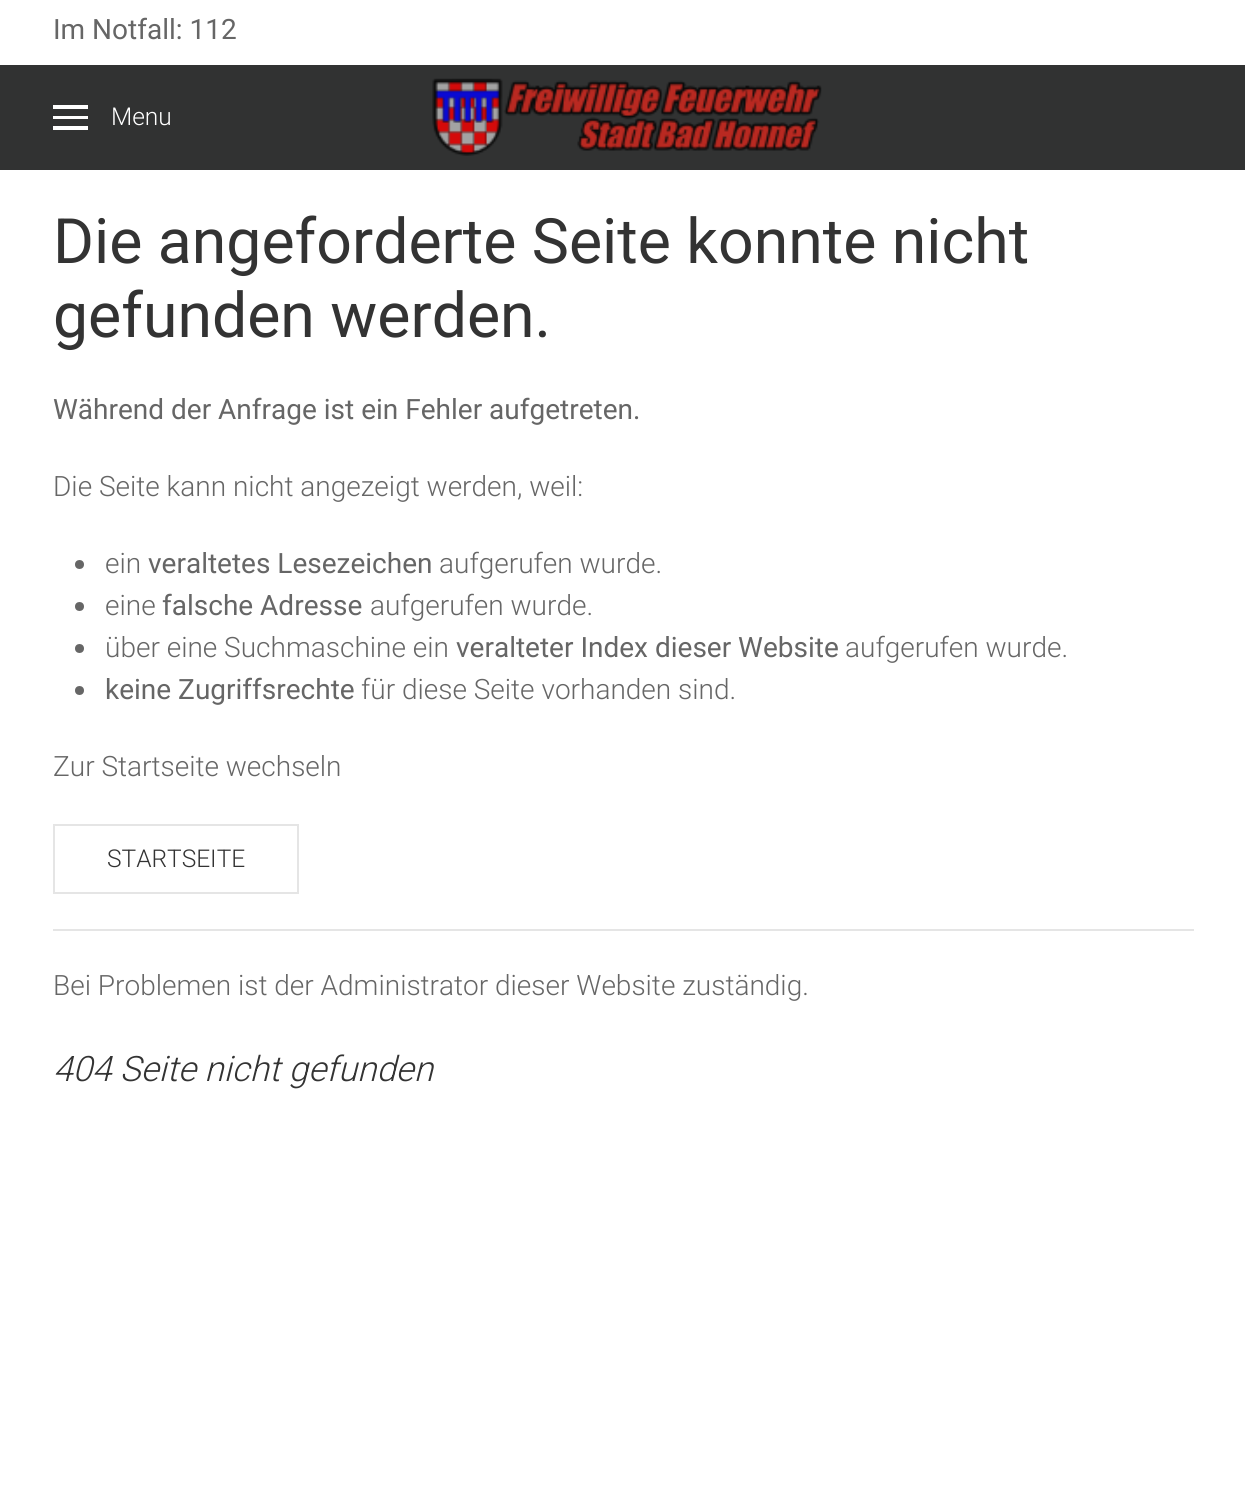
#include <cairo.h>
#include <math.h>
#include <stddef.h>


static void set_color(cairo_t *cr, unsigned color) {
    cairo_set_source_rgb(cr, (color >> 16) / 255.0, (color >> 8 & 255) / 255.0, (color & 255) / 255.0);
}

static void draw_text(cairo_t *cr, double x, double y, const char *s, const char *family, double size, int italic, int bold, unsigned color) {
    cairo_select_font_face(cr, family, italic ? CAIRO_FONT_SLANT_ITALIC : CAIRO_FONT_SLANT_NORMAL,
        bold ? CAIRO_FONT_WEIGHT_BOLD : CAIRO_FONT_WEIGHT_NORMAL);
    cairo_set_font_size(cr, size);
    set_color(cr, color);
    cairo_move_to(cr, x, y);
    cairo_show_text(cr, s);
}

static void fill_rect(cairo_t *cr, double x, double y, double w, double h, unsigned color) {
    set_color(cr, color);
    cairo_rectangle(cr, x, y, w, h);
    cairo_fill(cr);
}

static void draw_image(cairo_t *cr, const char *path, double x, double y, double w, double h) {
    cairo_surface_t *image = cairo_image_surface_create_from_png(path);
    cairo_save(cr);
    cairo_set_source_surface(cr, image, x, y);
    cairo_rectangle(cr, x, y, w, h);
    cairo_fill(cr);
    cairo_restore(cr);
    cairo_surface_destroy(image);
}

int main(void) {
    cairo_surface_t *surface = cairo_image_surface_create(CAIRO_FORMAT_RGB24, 1245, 1500);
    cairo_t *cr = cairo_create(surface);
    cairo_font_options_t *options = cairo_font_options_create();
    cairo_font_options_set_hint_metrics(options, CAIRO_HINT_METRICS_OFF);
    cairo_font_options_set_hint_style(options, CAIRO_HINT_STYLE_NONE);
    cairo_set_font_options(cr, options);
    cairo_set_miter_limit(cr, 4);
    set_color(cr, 0xFFFFFF);
    cairo_paint(cr);
    draw_text(cr, 53, 39, "Im Notfall: 112", "Roboto", 28, 0, 0, 0x666666);
    fill_rect(cr, 0, 65, 1245, 105, 0x313232);
    fill_rect(cr, 53, 105, 35, 4, 0xFFFFFF);
    fill_rect(cr, 53, 116, 35, 3, 0xFFFFFF);
    fill_rect(cr, 53, 126, 35, 4, 0xFFFFFF);
    draw_text(cr, 111, 125, "Menu", "Roboto Light", 24.5, 0, 0, 0xFFFFFF);
    draw_image(cr, "assets/img1.png", 432, 78, 390, 78);
    draw_text(cr, 53, 263, "Die angeforderte Seite konnte nicht", "Roboto", 62.5, 0, 0, 0x333333);
    draw_text(cr, 53, 337, "gefunden werden.", "Roboto", 62.5, 0, 0, 0x333333);
    draw_text(cr, 53, 419, "Während der Anfrage ist ein Fehler aufgetreten.", "Roboto", 28, 0, 0, 0x666666);
    draw_text(cr, 53, 496, "Die Seite kann nicht angezeigt werden, weil:", "Roboto Light", 28, 0, 0, 0x666666);
    cairo_new_path(cr);
    cairo_arc(cr, 79.5, 564.5, 4.5, 0, 2 * M_PI);
    cairo_fill(cr);
    draw_text(cr, 105, 573, "ein", "Roboto Light", 28, 0, 0, 0x666666);
    draw_text(cr, 148, 573, "veraltetes Lesezeichen", "Roboto", 28, 0, 0, 0x666666);
    draw_text(cr, 439, 573, "aufgerufen wurde.", "Roboto Light", 28, 0, 0, 0x666666);
    cairo_new_path(cr);
    cairo_arc(cr, 79.5, 606.5, 4.5, 0, 2 * M_PI);
    cairo_fill(cr);
    draw_text(cr, 105, 615, "eine", "Roboto Light", 28, 0, 0, 0x666666);
    draw_text(cr, 162, 615, "falsche Adresse", "Roboto", 28, 0, 0, 0x666666);
    draw_text(cr, 370, 615, "aufgerufen wurde.", "Roboto Light", 28, 0, 0, 0x666666);
    cairo_new_path(cr);
    cairo_arc(cr, 79.5, 648.5, 4.5, 0, 2 * M_PI);
    cairo_fill(cr);
    draw_text(cr, 105, 657, "über eine Suchmaschine ein", "Roboto Light", 28, 0, 0, 0x666666);
    draw_text(cr, 456, 657, "veralteter Index dieser Website", "Roboto", 28, 0, 0, 0x666666);
    draw_text(cr, 845, 657, "aufgerufen wurde.", "Roboto Light", 28, 0, 0, 0x666666);
    cairo_new_path(cr);
    cairo_arc(cr, 79.5, 690.5, 4.5, 0, 2 * M_PI);
    cairo_fill(cr);
    draw_text(cr, 105, 699, "keine Zugriffsrechte", "Roboto", 28, 0, 0, 0x666666);
    draw_text(cr, 361, 699, "für diese Seite vorhanden sind.", "Roboto Light", 28, 0, 0, 0x666666);
    draw_text(cr, 53, 776, "Zur Startseite wechseln", "Roboto Light", 28, 0, 0, 0x666666);
    cairo_rectangle(cr, 54, 825, 244, 68);
    set_color(cr, 0xE5E5E5);
    cairo_stroke(cr);
    draw_text(cr, 107, 867, "STARTSEITE", "Roboto Light", 24.5, 0, 0, 0x333333);
    fill_rect(cr, 53, 929, 1141, 2, 0xE5E5E5);
    draw_text(cr, 53, 995, "Bei Problemen ist der Administrator dieser Website zuständig.", "Roboto Light", 28, 0, 0, 0x666666);
    draw_text(cr, 53, 1081, "404 Seite nicht gefunden", "Roboto Light", 35, 1, 0, 0x333333);
    cairo_surface_write_to_png(surface, "output.png");
    cairo_font_options_destroy(options);
    cairo_destroy(cr);
    cairo_surface_destroy(surface);
    return 0;
}
